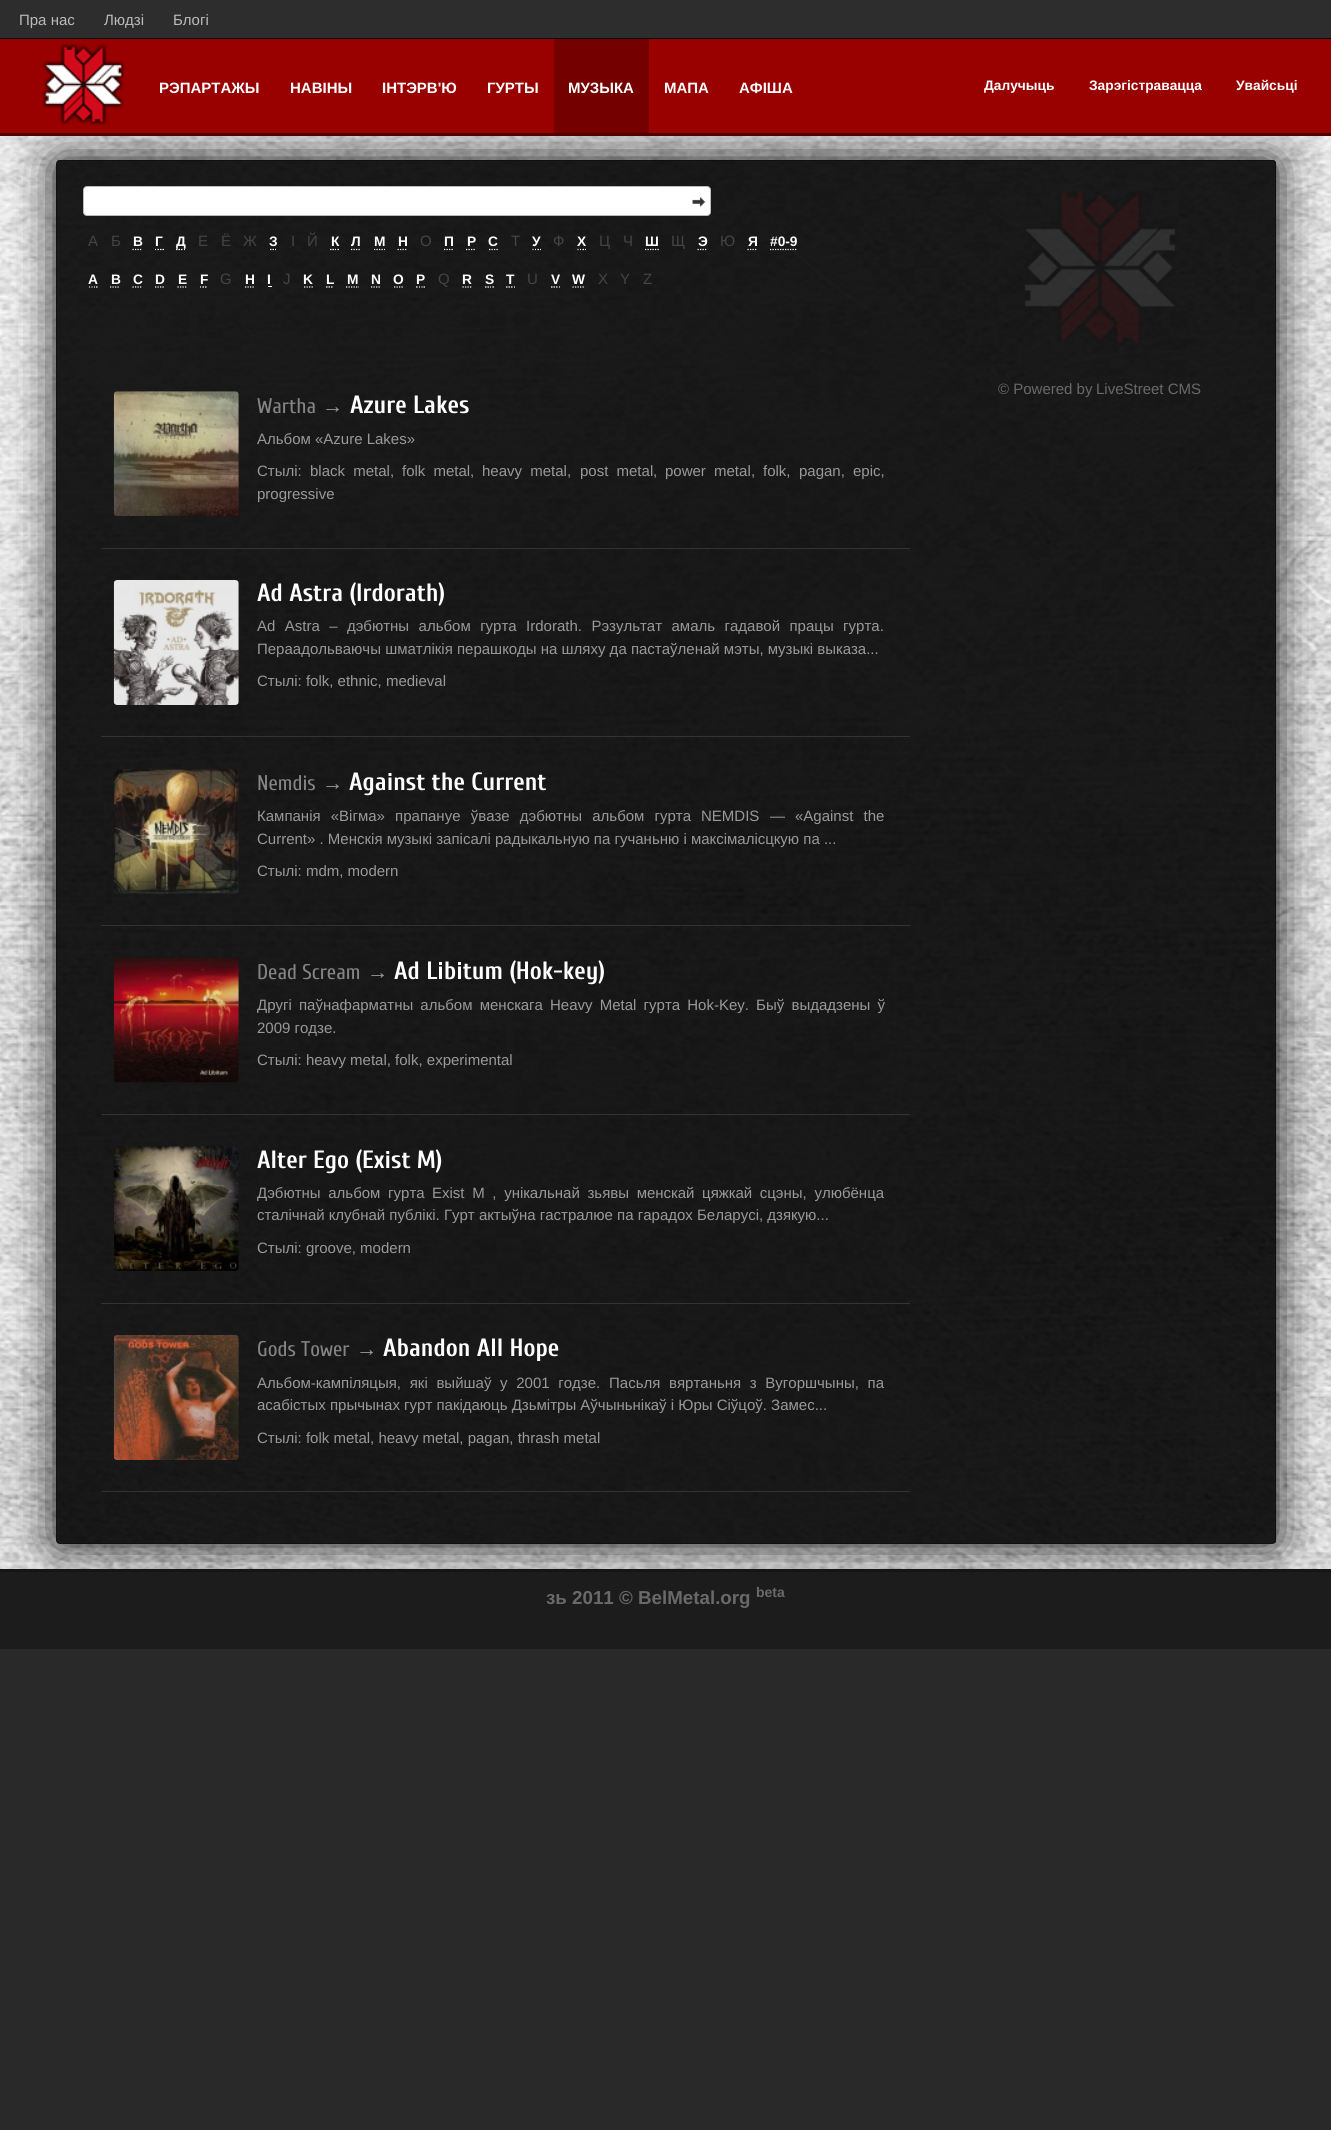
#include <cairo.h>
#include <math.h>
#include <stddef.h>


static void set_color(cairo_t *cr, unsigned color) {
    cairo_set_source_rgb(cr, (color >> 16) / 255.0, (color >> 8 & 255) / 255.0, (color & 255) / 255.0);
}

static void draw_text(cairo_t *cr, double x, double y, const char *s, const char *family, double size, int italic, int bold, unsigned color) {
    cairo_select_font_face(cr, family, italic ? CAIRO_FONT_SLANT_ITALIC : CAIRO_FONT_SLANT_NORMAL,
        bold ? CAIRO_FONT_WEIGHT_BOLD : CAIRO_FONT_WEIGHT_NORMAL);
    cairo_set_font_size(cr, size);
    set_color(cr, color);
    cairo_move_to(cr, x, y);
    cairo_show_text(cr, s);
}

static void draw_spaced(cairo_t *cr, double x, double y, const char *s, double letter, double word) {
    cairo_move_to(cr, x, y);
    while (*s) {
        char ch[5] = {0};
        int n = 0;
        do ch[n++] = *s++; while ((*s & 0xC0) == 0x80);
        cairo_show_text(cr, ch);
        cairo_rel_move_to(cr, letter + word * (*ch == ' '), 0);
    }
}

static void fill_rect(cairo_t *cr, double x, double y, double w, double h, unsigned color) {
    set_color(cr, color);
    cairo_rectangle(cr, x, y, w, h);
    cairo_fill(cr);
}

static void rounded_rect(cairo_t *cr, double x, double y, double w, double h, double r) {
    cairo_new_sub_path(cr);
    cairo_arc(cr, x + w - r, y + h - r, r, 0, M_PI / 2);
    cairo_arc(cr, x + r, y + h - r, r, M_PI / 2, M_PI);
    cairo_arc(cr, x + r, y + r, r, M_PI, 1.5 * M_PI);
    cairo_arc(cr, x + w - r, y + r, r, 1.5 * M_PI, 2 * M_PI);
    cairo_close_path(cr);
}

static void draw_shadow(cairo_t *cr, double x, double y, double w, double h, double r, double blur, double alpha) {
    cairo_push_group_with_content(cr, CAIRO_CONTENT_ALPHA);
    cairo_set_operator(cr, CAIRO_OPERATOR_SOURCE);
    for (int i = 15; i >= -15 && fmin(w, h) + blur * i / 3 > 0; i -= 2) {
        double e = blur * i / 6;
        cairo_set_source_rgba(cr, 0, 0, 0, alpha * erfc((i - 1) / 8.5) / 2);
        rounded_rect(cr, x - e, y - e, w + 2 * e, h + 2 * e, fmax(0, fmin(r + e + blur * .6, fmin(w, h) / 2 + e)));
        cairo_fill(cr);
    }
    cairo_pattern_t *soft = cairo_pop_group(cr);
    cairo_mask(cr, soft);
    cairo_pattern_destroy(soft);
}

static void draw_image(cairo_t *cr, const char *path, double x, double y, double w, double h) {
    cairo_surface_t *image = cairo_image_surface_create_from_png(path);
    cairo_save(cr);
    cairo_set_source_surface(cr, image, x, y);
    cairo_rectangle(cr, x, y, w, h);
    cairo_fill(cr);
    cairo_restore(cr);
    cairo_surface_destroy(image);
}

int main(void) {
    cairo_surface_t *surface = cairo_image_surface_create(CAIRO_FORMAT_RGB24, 1331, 2130);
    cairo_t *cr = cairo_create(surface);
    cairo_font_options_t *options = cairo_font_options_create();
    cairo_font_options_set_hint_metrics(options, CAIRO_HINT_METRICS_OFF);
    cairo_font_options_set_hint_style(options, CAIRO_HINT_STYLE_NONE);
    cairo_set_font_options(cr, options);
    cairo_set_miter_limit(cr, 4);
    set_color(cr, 0x292929);
    cairo_paint(cr);
    draw_image(cr, "assets/img1.png", 0, 136, 1331, 1433);
    fill_rect(cr, 0, 0, 1331, 38, 0x2D2D2D);
    fill_rect(cr, 0, 38, 1331, 1, 0x000000);
    draw_text(cr, 19, 25, "Пра нас", "Liberation Sans", 15, 0, 0, 0xBBBBBB);
    draw_text(cr, 104, 25, "Людзі", "Liberation Sans", 15, 0, 0, 0xBBBBBB);
    draw_text(cr, 173, 25, "Блогі", "Liberation Sans", 15, 0, 0, 0xBBBBBB);
    cairo_save(cr);
    cairo_set_fill_rule(cr, CAIRO_FILL_RULE_EVEN_ODD);
    cairo_new_path(cr);
    cairo_move_to(cr, 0, 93);
    cairo_line_to(cr, 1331, 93);
    cairo_line_to(cr, 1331, 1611);
    cairo_line_to(cr, 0, 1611);
    cairo_close_path(cr);
    cairo_move_to(cr, 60, 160);
    cairo_line_to(cr, 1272, 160);
    cairo_curve_to(cr, 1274, 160, 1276, 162, 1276, 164);
    cairo_line_to(cr, 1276, 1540);
    cairo_curve_to(cr, 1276, 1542, 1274, 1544, 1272, 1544);
    cairo_line_to(cr, 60, 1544);
    cairo_curve_to(cr, 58, 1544, 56, 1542, 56, 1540);
    cairo_line_to(cr, 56, 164);
    cairo_curve_to(cr, 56, 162, 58, 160, 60, 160);
    cairo_close_path(cr);
    cairo_clip(cr);
    set_color(cr, 0x101010);
    draw_shadow(cr, 56, 160, 1220, 1384, 4, 22, 1);
    cairo_restore(cr);
    fill_rect(cr, 0, 39, 1331, 94, 0x990000);
    fill_rect(cr, 0, 133, 1331, 3, 0x500000);
    draw_image(cr, "assets/img2.png", 42, 43, 83, 82);
    draw_text(cr, 159, 93, "РЭПАРТАЖЫ", "Liberation Sans", 15, 0, 1, 0xFFFFFF);
    draw_text(cr, 290, 93, "НАВІНЫ", "Liberation Sans", 15, 0, 1, 0xFFFFFF);
    draw_text(cr, 382, 93, "ІНТЭРВ'Ю", "Liberation Sans", 15, 0, 1, 0xFFFFFF);
    draw_text(cr, 487, 93, "ГУРТЫ", "Liberation Sans", 15, 0, 1, 0xFFFFFF);
    fill_rect(cr, 554, 39, 95, 94, 0x750000);
    draw_text(cr, 568, 93, "МУЗЫКА", "Liberation Sans", 15, 0, 1, 0xFFFFFF);
    draw_text(cr, 664, 93, "МАПА", "Liberation Sans", 15, 0, 1, 0xFFFFFF);
    draw_text(cr, 739, 93, "АФІША", "Liberation Sans", 15, 0, 1, 0xFFFFFF);
    draw_text(cr, 984, 90, "Далучыць", "Liberation Sans", 13.75, 0, 1, 0xFFFFFF);
    draw_text(cr, 1089, 90, "Зарэгістравацца", "Liberation Sans", 13.75, 0, 1, 0xFFFFFF);
    draw_text(cr, 1236, 90, "Увайсьці", "Liberation Sans", 13.75, 0, 1, 0xFFFFFF);
    draw_image(cr, "assets/img3.png", 56, 160, 1221, 1384);
    rounded_rect(cr, 56.5, 160.5, 1219, 1383, 3.5);
    set_color(cr, 0x101010);
    cairo_set_line_width(cr, 1);
    cairo_stroke(cr);
    set_color(cr, 0xFFFFFF);
    rounded_rect(cr, 83.5, 186.5, 627, 29, 3.5);
    cairo_fill_preserve(cr);
    set_color(cr, 0xBBBBBB);
    cairo_stroke(cr);
    draw_image(cr, "assets/img4.png", 692, 197, 14, 10);
    draw_text(cr, 88, 246, "А", "Liberation Sans", 15, 0, 0, 0x444444);
    draw_text(cr, 111, 246, "Б", "Liberation Sans", 15, 0, 0, 0x444444);
    draw_text(cr, 133, 246, "В", "Liberation Sans", 13.75, 0, 1, 0xFFFFFF);
    cairo_new_path(cr);
    cairo_move_to(cr, 132.5, 249.5);
    cairo_line_to(cr, 142.5, 249.5);
    cairo_set_line_width(cr, 1.2);
    cairo_set_dash(cr, (double[]){1.25, 1.25}, 2, 0);
    cairo_stroke(cr);
    draw_text(cr, 155, 246, "Г", "Liberation Sans", 13.75, 0, 1, 0xFFFFFF);
    cairo_new_path(cr);
    cairo_move_to(cr, 155, 249.5);
    cairo_line_to(cr, 156, 249.5);
    cairo_move_to(cr, 157.5, 249.5);
    cairo_line_to(cr, 159, 249.5);
    cairo_move_to(cr, 160, 249.5);
    cairo_line_to(cr, 161.5, 249.5);
    cairo_move_to(cr, 162.5, 249.5);
    cairo_line_to(cr, 164, 249.5);
    cairo_set_dash(cr, NULL, 0, 0);
    cairo_stroke(cr);
    cairo_new_path(cr);
    cairo_move_to(cr, 176, 249.5);
    cairo_line_to(cr, 177.5, 249.5);
    cairo_move_to(cr, 178.5, 249.5);
    cairo_line_to(cr, 180, 249.5);
    cairo_move_to(cr, 181, 249.5);
    cairo_line_to(cr, 182.5, 249.5);
    cairo_move_to(cr, 184, 249.5);
    cairo_line_to(cr, 185, 249.5);
    cairo_stroke(cr);
    draw_text(cr, 176, 246, "Д", "Liberation Sans", 13.75, 0, 1, 0xFFFFFF);
    draw_text(cr, 198, 246, "Е", "Liberation Sans", 15, 0, 0, 0x444444);
    draw_text(cr, 221, 246, "Ё", "Liberation Sans", 15, 0, 0, 0x444444);
    draw_text(cr, 243, 246, "Ж", "Liberation Sans", 15, 0, 0, 0x444444);
    draw_text(cr, 269, 246, "З", "Liberation Sans", 13.75, 0, 1, 0xFFFFFF);
    cairo_new_path(cr);
    cairo_move_to(cr, 270, 249.5);
    cairo_line_to(cr, 271.5, 249.5);
    cairo_move_to(cr, 272.5, 249.5);
    cairo_line_to(cr, 274, 249.5);
    cairo_move_to(cr, 275, 249.5);
    cairo_line_to(cr, 276, 249.5);
    cairo_stroke(cr);
    draw_text(cr, 291, 246, "I", "Liberation Sans", 15, 0, 0, 0x444444);
    draw_text(cr, 307, 246, "Й", "Liberation Sans", 15, 0, 0, 0x444444);
    draw_text(cr, 331, 246, "К", "Liberation Sans", 13.75, 0, 1, 0xFFFFFF);
    cairo_new_path(cr);
    cairo_move_to(cr, 330, 249.5);
    cairo_line_to(cr, 331.5, 249.5);
    cairo_move_to(cr, 332.5, 249.5);
    cairo_line_to(cr, 334, 249.5);
    cairo_move_to(cr, 335, 249.5);
    cairo_line_to(cr, 336, 249.5);
    cairo_move_to(cr, 337.5, 249.5);
    cairo_line_to(cr, 339, 249.5);
    cairo_stroke(cr);
    draw_text(cr, 351, 246, "Л", "Liberation Sans", 13.75, 0, 1, 0xFFFFFF);
    cairo_new_path(cr);
    cairo_move_to(cr, 351, 249.5);
    cairo_line_to(cr, 361, 249.5);
    cairo_set_dash(cr, (double[]){1.25, 1.25}, 2, 0);
    cairo_stroke(cr);
    draw_text(cr, 374, 246, "М", "Liberation Sans", 13.75, 0, 1, 0xFFFFFF);
    cairo_new_path(cr);
    cairo_move_to(cr, 374, 249.5);
    cairo_line_to(cr, 385, 249.5);
    cairo_stroke(cr);
    draw_text(cr, 398, 246, "Н", "Liberation Sans", 13.75, 0, 1, 0xFFFFFF);
    cairo_new_path(cr);
    cairo_move_to(cr, 397.5, 249.5);
    cairo_line_to(cr, 407.5, 249.5);
    cairo_stroke(cr);
    draw_text(cr, 420, 246, "О", "Liberation Sans", 15, 0, 0, 0x444444);
    draw_text(cr, 444, 246, "П", "Liberation Sans", 13.75, 0, 1, 0xFFFFFF);
    cairo_new_path(cr);
    cairo_move_to(cr, 444, 249.5);
    cairo_line_to(cr, 454, 249.5);
    cairo_stroke(cr);
    draw_text(cr, 467, 246, "Р", "Liberation Sans", 13.75, 0, 1, 0xFFFFFF);
    cairo_new_path(cr);
    cairo_move_to(cr, 466, 249.5);
    cairo_line_to(cr, 476, 249.5);
    cairo_stroke(cr);
    draw_text(cr, 488, 246, "С", "Liberation Sans", 13.75, 0, 1, 0xFFFFFF);
    cairo_new_path(cr);
    cairo_move_to(cr, 489, 249.5);
    cairo_line_to(cr, 499, 249.5);
    cairo_stroke(cr);
    draw_text(cr, 511, 246, "Т", "Liberation Sans", 15, 0, 0, 0x444444);
    draw_text(cr, 532, 246, "У", "Liberation Sans", 13.75, 0, 1, 0xFFFFFF);
    cairo_new_path(cr);
    cairo_move_to(cr, 532.5, 249.5);
    cairo_line_to(cr, 533.5, 249.5);
    cairo_move_to(cr, 535, 249.5);
    cairo_line_to(cr, 536, 249.5);
    cairo_move_to(cr, 537.5, 249.5);
    cairo_line_to(cr, 539, 249.5);
    cairo_move_to(cr, 540, 249.5);
    cairo_line_to(cr, 541, 249.5);
    cairo_set_dash(cr, NULL, 0, 0);
    cairo_stroke(cr);
    draw_text(cr, 553, 246, "Ф", "Liberation Sans", 15, 0, 0, 0x444444);
    draw_text(cr, 577, 246, "Х", "Liberation Sans", 13.75, 0, 1, 0xFFFFFF);
    cairo_new_path(cr);
    cairo_move_to(cr, 577.5, 249.5);
    cairo_line_to(cr, 578.5, 249.5);
    cairo_move_to(cr, 580, 249.5);
    cairo_line_to(cr, 581, 249.5);
    cairo_move_to(cr, 582.5, 249.5);
    cairo_line_to(cr, 584, 249.5);
    cairo_move_to(cr, 585, 249.5);
    cairo_line_to(cr, 586, 249.5);
    cairo_stroke(cr);
    draw_text(cr, 599, 246, "Ц", "Liberation Sans", 15, 0, 0, 0x444444);
    draw_text(cr, 623, 246, "Ч", "Liberation Sans", 15, 0, 0, 0x444444);
    draw_text(cr, 645, 246, "Ш", "Liberation Sans", 13.75, 0, 1, 0xFFFFFF);
    cairo_new_path(cr);
    cairo_move_to(cr, 645, 249.5);
    cairo_line_to(cr, 659, 249.5);
    cairo_set_dash(cr, (double[]){1.25, 1.25}, 2, 0);
    cairo_stroke(cr);
    draw_text(cr, 671, 246, "Щ", "Liberation Sans", 15, 0, 0, 0x444444);
    draw_text(cr, 698, 246, "Э", "Liberation Sans", 13.75, 0, 1, 0xFFFFFF);
    cairo_new_path(cr);
    cairo_move_to(cr, 697.5, 249.5);
    cairo_line_to(cr, 707.5, 249.5);
    cairo_stroke(cr);
    draw_text(cr, 720, 246, "Ю", "Liberation Sans", 15, 0, 0, 0x444444);
    draw_text(cr, 748, 246, "Я", "Liberation Sans", 13.75, 0, 1, 0xFFFFFF);
    cairo_new_path(cr);
    cairo_move_to(cr, 747.5, 249.5);
    cairo_line_to(cr, 757.5, 249.5);
    cairo_stroke(cr);
    draw_text(cr, 770, 246, "#0-9", "Liberation Sans", 13.75, 0, 1, 0xFFFFFF);
    cairo_new_path(cr);
    cairo_move_to(cr, 770, 249.5);
    cairo_line_to(cr, 797.5, 249.5);
    cairo_stroke(cr);
    draw_text(cr, 88, 284, "A", "Liberation Sans", 13.75, 0, 1, 0xFFFFFF);
    cairo_new_path(cr);
    cairo_move_to(cr, 89, 287);
    cairo_line_to(cr, 90, 287);
    cairo_move_to(cr, 91.5, 287);
    cairo_line_to(cr, 92.5, 287);
    cairo_move_to(cr, 94, 287);
    cairo_line_to(cr, 95, 287);
    cairo_move_to(cr, 96, 287);
    cairo_line_to(cr, 97.5, 287);
    cairo_set_dash(cr, NULL, 0, 0);
    cairo_stroke(cr);
    draw_text(cr, 111, 284, "B", "Liberation Sans", 13.75, 0, 1, 0xFFFFFF);
    cairo_new_path(cr);
    cairo_move_to(cr, 110, 287);
    cairo_line_to(cr, 120, 287);
    cairo_set_dash(cr, (double[]){1.25, 1.25}, 2, 0);
    cairo_stroke(cr);
    draw_text(cr, 133, 284, "C", "Liberation Sans", 13.75, 0, 1, 0xFFFFFF);
    cairo_new_path(cr);
    cairo_move_to(cr, 132.5, 287);
    cairo_line_to(cr, 142.5, 287);
    cairo_stroke(cr);
    draw_text(cr, 155, 284, "D", "Liberation Sans", 13.75, 0, 1, 0xFFFFFF);
    cairo_new_path(cr);
    cairo_move_to(cr, 155, 287);
    cairo_line_to(cr, 165, 287);
    cairo_stroke(cr);
    draw_text(cr, 178, 284, "E", "Liberation Sans", 13.75, 0, 1, 0xFFFFFF);
    cairo_new_path(cr);
    cairo_move_to(cr, 177.5, 287);
    cairo_line_to(cr, 187.5, 287);
    cairo_stroke(cr);
    draw_text(cr, 200, 284, "F", "Liberation Sans", 13.75, 0, 1, 0xFFFFFF);
    cairo_new_path(cr);
    cairo_move_to(cr, 200, 287);
    cairo_line_to(cr, 201, 287);
    cairo_move_to(cr, 202.5, 287);
    cairo_line_to(cr, 204, 287);
    cairo_move_to(cr, 205, 287);
    cairo_line_to(cr, 206.5, 287);
    cairo_set_dash(cr, NULL, 0, 0);
    cairo_stroke(cr);
    draw_text(cr, 220, 284, "G", "Liberation Sans", 15, 0, 0, 0x444444);
    draw_text(cr, 245, 284, "H", "Liberation Sans", 13.75, 0, 1, 0xFFFFFF);
    cairo_new_path(cr);
    cairo_move_to(cr, 245, 287);
    cairo_line_to(cr, 255, 287);
    cairo_set_dash(cr, (double[]){1.25, 1.25}, 2, 0);
    cairo_stroke(cr);
    draw_text(cr, 267, 284, "I", "Liberation Sans", 13.75, 0, 1, 0xFFFFFF);
    fill_rect(cr, 268, 286, 4, 1, 0xFFFFFF);
    draw_text(cr, 283, 284, "J", "Liberation Sans", 15, 0, 0, 0x444444);
    draw_text(cr, 303, 284, "K", "Liberation Sans", 13.75, 0, 1, 0xFFFFFF);
    cairo_new_path(cr);
    cairo_move_to(cr, 304, 287);
    cairo_line_to(cr, 314, 287);
    cairo_stroke(cr);
    draw_text(cr, 326, 284, "L", "Liberation Sans", 13.75, 0, 1, 0xFFFFFF);
    cairo_new_path(cr);
    cairo_move_to(cr, 326, 287);
    cairo_line_to(cr, 327.5, 287);
    cairo_move_to(cr, 328.5, 287);
    cairo_line_to(cr, 330, 287);
    cairo_move_to(cr, 331, 287);
    cairo_line_to(cr, 332.5, 287);
    cairo_set_dash(cr, NULL, 0, 0);
    cairo_stroke(cr);
    draw_text(cr, 347, 284, "M", "Liberation Sans", 13.75, 0, 1, 0xFFFFFF);
    cairo_new_path(cr);
    cairo_move_to(cr, 346, 287);
    cairo_line_to(cr, 359, 287);
    cairo_set_dash(cr, (double[]){1.25, 1.25}, 2, 0);
    cairo_stroke(cr);
    draw_text(cr, 371, 284, "N", "Liberation Sans", 13.75, 0, 1, 0xFFFFFF);
    cairo_new_path(cr);
    cairo_move_to(cr, 371, 287);
    cairo_line_to(cr, 381, 287);
    cairo_stroke(cr);
    draw_text(cr, 393, 284, "O", "Liberation Sans", 13.75, 0, 1, 0xFFFFFF);
    cairo_new_path(cr);
    cairo_move_to(cr, 394, 287);
    cairo_line_to(cr, 404, 287);
    cairo_stroke(cr);
    draw_text(cr, 416, 284, "P", "Liberation Sans", 13.75, 0, 1, 0xFFFFFF);
    cairo_new_path(cr);
    cairo_move_to(cr, 416, 287);
    cairo_line_to(cr, 417.5, 287);
    cairo_move_to(cr, 419, 287);
    cairo_line_to(cr, 420, 287);
    cairo_move_to(cr, 421.5, 287);
    cairo_line_to(cr, 422.5, 287);
    cairo_move_to(cr, 423.5, 287);
    cairo_line_to(cr, 425, 287);
    cairo_set_dash(cr, NULL, 0, 0);
    cairo_stroke(cr);
    draw_text(cr, 438, 284, "Q", "Liberation Sans", 15, 0, 0, 0x444444);
    draw_text(cr, 462, 284, "R", "Liberation Sans", 13.75, 0, 1, 0xFFFFFF);
    cairo_new_path(cr);
    cairo_move_to(cr, 462.5, 287);
    cairo_line_to(cr, 472.5, 287);
    cairo_set_dash(cr, (double[]){1.25, 1.25}, 2, 0);
    cairo_stroke(cr);
    draw_text(cr, 485, 284, "S", "Liberation Sans", 13.75, 0, 1, 0xFFFFFF);
    cairo_new_path(cr);
    cairo_move_to(cr, 485, 287);
    cairo_line_to(cr, 486.5, 287);
    cairo_move_to(cr, 487.5, 287);
    cairo_line_to(cr, 489, 287);
    cairo_move_to(cr, 490, 287);
    cairo_line_to(cr, 491, 287);
    cairo_move_to(cr, 492.5, 287);
    cairo_line_to(cr, 494, 287);
    cairo_set_dash(cr, NULL, 0, 0);
    cairo_stroke(cr);
    draw_text(cr, 506, 284, "T", "Liberation Sans", 13.75, 0, 1, 0xFFFFFF);
    cairo_new_path(cr);
    cairo_move_to(cr, 506, 287);
    cairo_line_to(cr, 507.5, 287);
    cairo_move_to(cr, 508.5, 287);
    cairo_line_to(cr, 510, 287);
    cairo_move_to(cr, 511, 287);
    cairo_line_to(cr, 512.5, 287);
    cairo_move_to(cr, 514, 287);
    cairo_line_to(cr, 515, 287);
    cairo_stroke(cr);
    draw_text(cr, 527, 284, "U", "Liberation Sans", 15, 0, 0, 0x444444);
    draw_text(cr, 551, 284, "V", "Liberation Sans", 13.75, 0, 1, 0xFFFFFF);
    cairo_new_path(cr);
    cairo_move_to(cr, 551, 287);
    cairo_line_to(cr, 552.5, 287);
    cairo_move_to(cr, 553.5, 287);
    cairo_line_to(cr, 555, 287);
    cairo_move_to(cr, 556, 287);
    cairo_line_to(cr, 557.5, 287);
    cairo_move_to(cr, 559, 287);
    cairo_line_to(cr, 560, 287);
    cairo_stroke(cr);
    draw_text(cr, 572, 284, "W", "Liberation Sans", 13.75, 0, 1, 0xFFFFFF);
    cairo_new_path(cr);
    cairo_move_to(cr, 572.5, 287);
    cairo_line_to(cr, 585, 287);
    cairo_set_dash(cr, (double[]){1.25, 1.25}, 2, 0);
    cairo_stroke(cr);
    draw_text(cr, 598, 284, "X", "Liberation Sans", 15, 0, 0, 0x444444);
    draw_text(cr, 620, 284, "Y", "Liberation Sans", 15, 0, 0, 0x444444);
    draw_text(cr, 643, 284, "Z", "Liberation Sans", 15, 0, 0, 0x444444);
    fill_rect(cr, 101, 548, 809, 1, 0x333333);
    draw_image(cr, "assets/img5.png", 113, 391, 126, 125);
    draw_text(cr, 257, 413, "Wartha", "Cuprum", 21.25, 0, 0, 0x848484);
    draw_text(cr, 322, 413, "→", "Liberation Sans", 21.25, 0, 0, 0x999999);
    draw_text(cr, 350, 413, "Azure Lakes", "Cuprum", 25, 0, 1, 0xFFFFFF);
    draw_text(cr, 257, 444, "Альбом «Azure Lakes»", "Liberation Sans", 15, 0, 0, 0x999999);
    draw_text(cr, 257, 476, "Стылі:", "Liberation Sans", 15, 0, 0, 0x999999);
    draw_spaced(cr, 310, 476, "black metal", 0, 4);
    draw_text(cr, 390, 476, ",", "Liberation Sans", 15, 0, 0, 0x999999);
    draw_spaced(cr, 402, 476, "folk metal", 0, 4);
    draw_text(cr, 470, 476, ",", "Liberation Sans", 15, 0, 0, 0x999999);
    draw_spaced(cr, 482, 476, "heavy metal", 0, 4);
    draw_text(cr, 567, 476, ",", "Liberation Sans", 15, 0, 0, 0x999999);
    draw_spaced(cr, 580, 476, "post metal", 0, 4);
    draw_text(cr, 653, 476, ",", "Liberation Sans", 15, 0, 0, 0x999999);
    draw_spaced(cr, 665, 476, "power metal", 0, 4);
    draw_text(cr, 751, 476, ",", "Liberation Sans", 15, 0, 0, 0x999999);
    draw_text(cr, 763, 476, "folk,", "Liberation Sans", 15, 0, 0, 0x999999);
    draw_text(cr, 799, 476, "pagan,", "Liberation Sans", 15, 0, 0, 0x999999);
    draw_text(cr, 853, 476, "epic,", "Liberation Sans", 15, 0, 0, 0x999999);
    draw_text(cr, 257, 499, "progressive", "Liberation Sans", 15, 0, 0, 0x999999);
    fill_rect(cr, 101, 736, 809, 1, 0x333333);
    draw_image(cr, "assets/img6.png", 113, 580, 126, 125);
    draw_text(cr, 257, 601, "Ad Astra (Irdorath)", "Cuprum", 25, 0, 1, 0xFFFFFF);
    cairo_select_font_face(cr, "Liberation Sans", CAIRO_FONT_SLANT_NORMAL, CAIRO_FONT_WEIGHT_NORMAL);
    cairo_set_font_size(cr, 15);
    set_color(cr, 0x999999);
    draw_spaced(cr, 257, 631, "Ad Astra – дэбютны альбом гурта Irdorath. Рэзультат амаль гадавой працы гурта.", 0, 5.25);
    draw_text(cr, 257, 654, "Пераадольваючы шматлікія перашкоды на шляху да пастаўленай мэты, музыкі выказа...", "Liberation Sans", 15, 0, 0, 0x999999);
    draw_text(cr, 257, 686, "Стылі: folk, ethnic, medieval", "Liberation Sans", 15, 0, 0, 0x999999);
    fill_rect(cr, 101, 925, 809, 1, 0x333333);
    draw_image(cr, "assets/img7.png", 114, 769, 125, 125);
    draw_text(cr, 257, 790, "Nemdis", "Cuprum", 21.25, 0, 0, 0x848484);
    draw_text(cr, 322, 790, "→", "Liberation Sans", 21.25, 0, 0, 0x999999);
    draw_text(cr, 349, 790, "Against the Current", "Cuprum", 25, 0, 1, 0xFFFFFF);
    cairo_select_font_face(cr, "Liberation Sans", CAIRO_FONT_SLANT_NORMAL, CAIRO_FONT_WEIGHT_NORMAL);
    cairo_set_font_size(cr, 15);
    set_color(cr, 0x999999);
    draw_spaced(cr, 257, 821, "Кампанія «Вігма» прапануе ўвазе дэбютны альбом гурта", 0, 6);
    draw_text(cr, 701, 821, "NEMDIS", "Liberation Sans", 15, 0, 0, 0x999999);
    draw_text(cr, 770, 821, "—", "Liberation Sans", 15, 0, 0, 0x999999);
    draw_spaced(cr, 795, 821, "«Against the", 0, 6);
    draw_text(cr, 257, 844, "Current» . Менскія музыкі запісалі радыкальную па гучаньню і максімалісцкую па ...", "Liberation Sans", 15, 0, 0, 0x999999);
    draw_text(cr, 257, 876, "Стылі: mdm, modern", "Liberation Sans", 15, 0, 0, 0x999999);
    fill_rect(cr, 101, 1114, 809, 1, 0x333333);
    draw_image(cr, "assets/img8.png", 113, 957, 126, 126);
    draw_text(cr, 257, 979, "Dead Scream", "Cuprum", 21.25, 0, 0, 0x848484);
    draw_text(cr, 367, 979, "→", "Liberation Sans", 21.25, 0, 0, 0x999999);
    draw_text(cr, 394, 979, "Ad Libitum (Hok-key)", "Cuprum", 25, 0, 1, 0xFFFFFF);
    cairo_select_font_face(cr, "Liberation Sans", CAIRO_FONT_SLANT_NORMAL, CAIRO_FONT_WEIGHT_NORMAL);
    cairo_set_font_size(cr, 15);
    set_color(cr, 0x999999);
    draw_spaced(cr, 257, 1010, "Другі паўнафарматны альбом менскага Heavy Metal гурта Hok-Key. Быў выдадзены ў", 0, 3);
    draw_text(cr, 257, 1033, "2009 годзе.", "Liberation Sans", 15, 0, 0, 0x999999);
    draw_text(cr, 257, 1065, "Стылі: heavy metal, folk, experimental", "Liberation Sans", 15, 0, 0, 0x999999);
    fill_rect(cr, 101, 1303, 809, 1, 0x333333);
    draw_image(cr, "assets/img9.png", 114, 1146, 125, 125);
    draw_text(cr, 257, 1168, "Alter Ego (Exist M)", "Cuprum", 25, 0, 1, 0xFFFFFF);
    cairo_select_font_face(cr, "Liberation Sans", CAIRO_FONT_SLANT_NORMAL, CAIRO_FONT_WEIGHT_NORMAL);
    cairo_set_font_size(cr, 15);
    set_color(cr, 0x999999);
    draw_spaced(cr, 257, 1198, "Дэбютны альбом гурта", 0, 3.5);
    draw_spaced(cr, 432, 1198, "Exist M , унікальнай зьявы менскай цяжкай сцэны, улюбёнца", 0, 3.5);
    draw_text(cr, 257, 1220, "сталічнай клубнай публікі. Гурт актыўна гастралюе па гарадох Беларусі, дзякую...", "Liberation Sans", 15, 0, 0, 0x999999);
    draw_text(cr, 257, 1253, "Стылі: groove, modern", "Liberation Sans", 15, 0, 0, 0x999999);
    fill_rect(cr, 101, 1491, 809, 1, 0x333333);
    draw_image(cr, "assets/img10.png", 113, 1335, 126, 125);
    draw_text(cr, 257, 1356, "Gods Tower", "Cuprum", 21.25, 0, 0, 0x848484);
    draw_text(cr, 356, 1356, "→", "Liberation Sans", 21.25, 0, 0, 0x999999);
    draw_text(cr, 383, 1356, "Abandon All Hope", "Cuprum", 25, 0, 1, 0xFFFFFF);
    cairo_select_font_face(cr, "Liberation Sans", CAIRO_FONT_SLANT_NORMAL, CAIRO_FONT_WEIGHT_NORMAL);
    cairo_set_font_size(cr, 15);
    set_color(cr, 0x999999);
    draw_spaced(cr, 257, 1388, "Альбом-кампіляцыя, які выйшаў у 2001 годзе.", 0, 4.5);
    draw_spaced(cr, 609, 1388, "Пасьля вяртаньня з Вугоршчыны, па", 0, 4.5);
    draw_text(cr, 257, 1410, "асабістых прычынах гурт пакідаюць Дзьмітры Аўчыньнікаў і Юры Сіўцоў. Замес...", "Liberation Sans", 15, 0, 0, 0x999999);
    draw_text(cr, 257, 1443, "Стылі: folk metal, heavy metal, pagan, thrash metal", "Liberation Sans", 15, 0, 0, 0x999999);
    draw_image(cr, "assets/img11.png", 1025, 192, 150, 151);
    draw_text(cr, 998, 394, "© Powered by", "Liberation Sans", 15, 0, 0, 0x696969);
    draw_text(cr, 1096, 394, "LiveStreet CMS", "Liberation Sans", 15, 0, 0, 0x696969);
    fill_rect(cr, 0, 1572, 1331, 77, 0x1C1C1C);
    fill_rect(cr, 0, 1569, 1331, 3, 0x151515);
    draw_text(cr, 546, 1604, "зь 2011", "Liberation Sans", 18.75, 0, 1, 0x696969);
    draw_text(cr, 619, 1604, "© BelMetal.org", "Liberation Sans", 18.75, 0, 1, 0x696969);
    draw_text(cr, 756, 1597, "beta", "Liberation Sans", 14, 0, 1, 0x696969);
    cairo_surface_write_to_png(surface, "output.png");
    cairo_font_options_destroy(options);
    cairo_destroy(cr);
    cairo_surface_destroy(surface);
    return 0;
}
